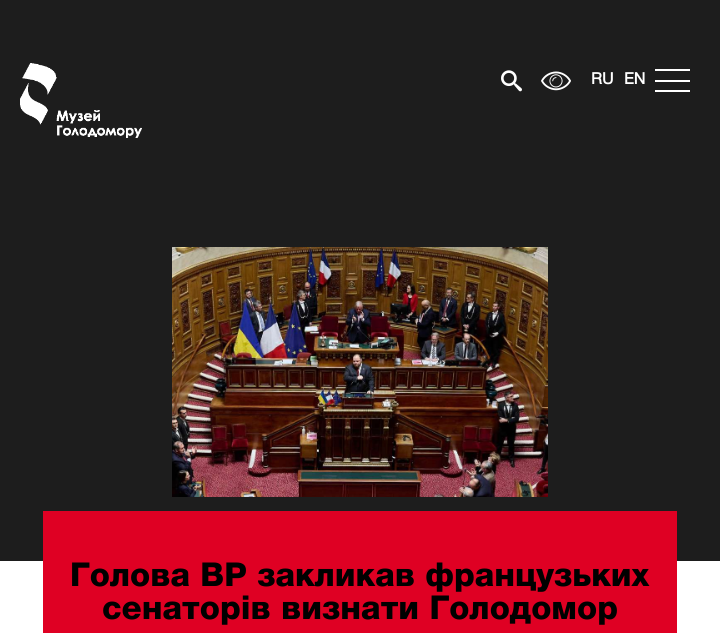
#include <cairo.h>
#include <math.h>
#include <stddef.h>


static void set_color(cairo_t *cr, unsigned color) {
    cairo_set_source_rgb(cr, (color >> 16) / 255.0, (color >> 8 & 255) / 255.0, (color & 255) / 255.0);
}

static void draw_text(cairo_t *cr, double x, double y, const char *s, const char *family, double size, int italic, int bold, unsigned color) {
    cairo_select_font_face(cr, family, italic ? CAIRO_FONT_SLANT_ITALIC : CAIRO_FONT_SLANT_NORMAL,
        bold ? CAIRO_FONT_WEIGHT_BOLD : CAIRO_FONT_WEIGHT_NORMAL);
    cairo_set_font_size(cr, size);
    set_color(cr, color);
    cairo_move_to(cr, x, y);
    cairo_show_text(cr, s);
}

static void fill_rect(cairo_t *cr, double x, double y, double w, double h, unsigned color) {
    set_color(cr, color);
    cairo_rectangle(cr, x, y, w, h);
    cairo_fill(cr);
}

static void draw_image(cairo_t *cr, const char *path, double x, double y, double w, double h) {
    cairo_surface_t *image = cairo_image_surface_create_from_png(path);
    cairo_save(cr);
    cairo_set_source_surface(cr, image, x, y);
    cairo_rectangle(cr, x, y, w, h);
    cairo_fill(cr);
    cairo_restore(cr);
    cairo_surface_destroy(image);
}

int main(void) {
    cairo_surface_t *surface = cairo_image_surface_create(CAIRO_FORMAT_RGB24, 720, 633);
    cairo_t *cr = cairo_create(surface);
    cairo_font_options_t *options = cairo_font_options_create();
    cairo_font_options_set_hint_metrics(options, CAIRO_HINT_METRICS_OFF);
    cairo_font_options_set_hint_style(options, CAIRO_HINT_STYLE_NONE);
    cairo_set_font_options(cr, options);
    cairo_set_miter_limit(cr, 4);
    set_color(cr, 0x1D1D1D);
    cairo_paint(cr);
    draw_image(cr, "assets/img1.png", 20, 63, 122, 75);
    draw_image(cr, "assets/img2.png", 501, 70, 21, 22);
    draw_image(cr, "assets/img3.png", 541, 71, 30, 20);
    draw_text(cr, 591, 84, "RU", "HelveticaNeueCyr", 16, 0, 1, 0xFFFFFF);
    draw_text(cr, 624, 84, "EN", "HelveticaNeueCyr", 16, 0, 1, 0xFFFFFF);
    fill_rect(cr, 655, 69, 35, 2, 0xFFFFFF);
    fill_rect(cr, 655, 80, 35, 2, 0xFFFFFF);
    fill_rect(cr, 655, 90, 35, 2, 0xFFFFFF);
    fill_rect(cr, 0, 561, 720, 72, 0xFFFFFF);
    draw_image(cr, "assets/img4.png", 172, 247, 376, 250);
    fill_rect(cr, 43, 511, 634, 122, 0xDF0023);
    draw_text(cr, 70, 586, "Голова ВР закликав французьких", "HelveticaNeueCyr Black", 33, 0, 0, 0x000000);
    draw_text(cr, 102, 619, "сенаторів визнати Голодомор", "HelveticaNeueCyr Black", 33, 0, 0, 0x000000);
    cairo_surface_write_to_png(surface, "output.png");
    cairo_font_options_destroy(options);
    cairo_destroy(cr);
    cairo_surface_destroy(surface);
    return 0;
}
